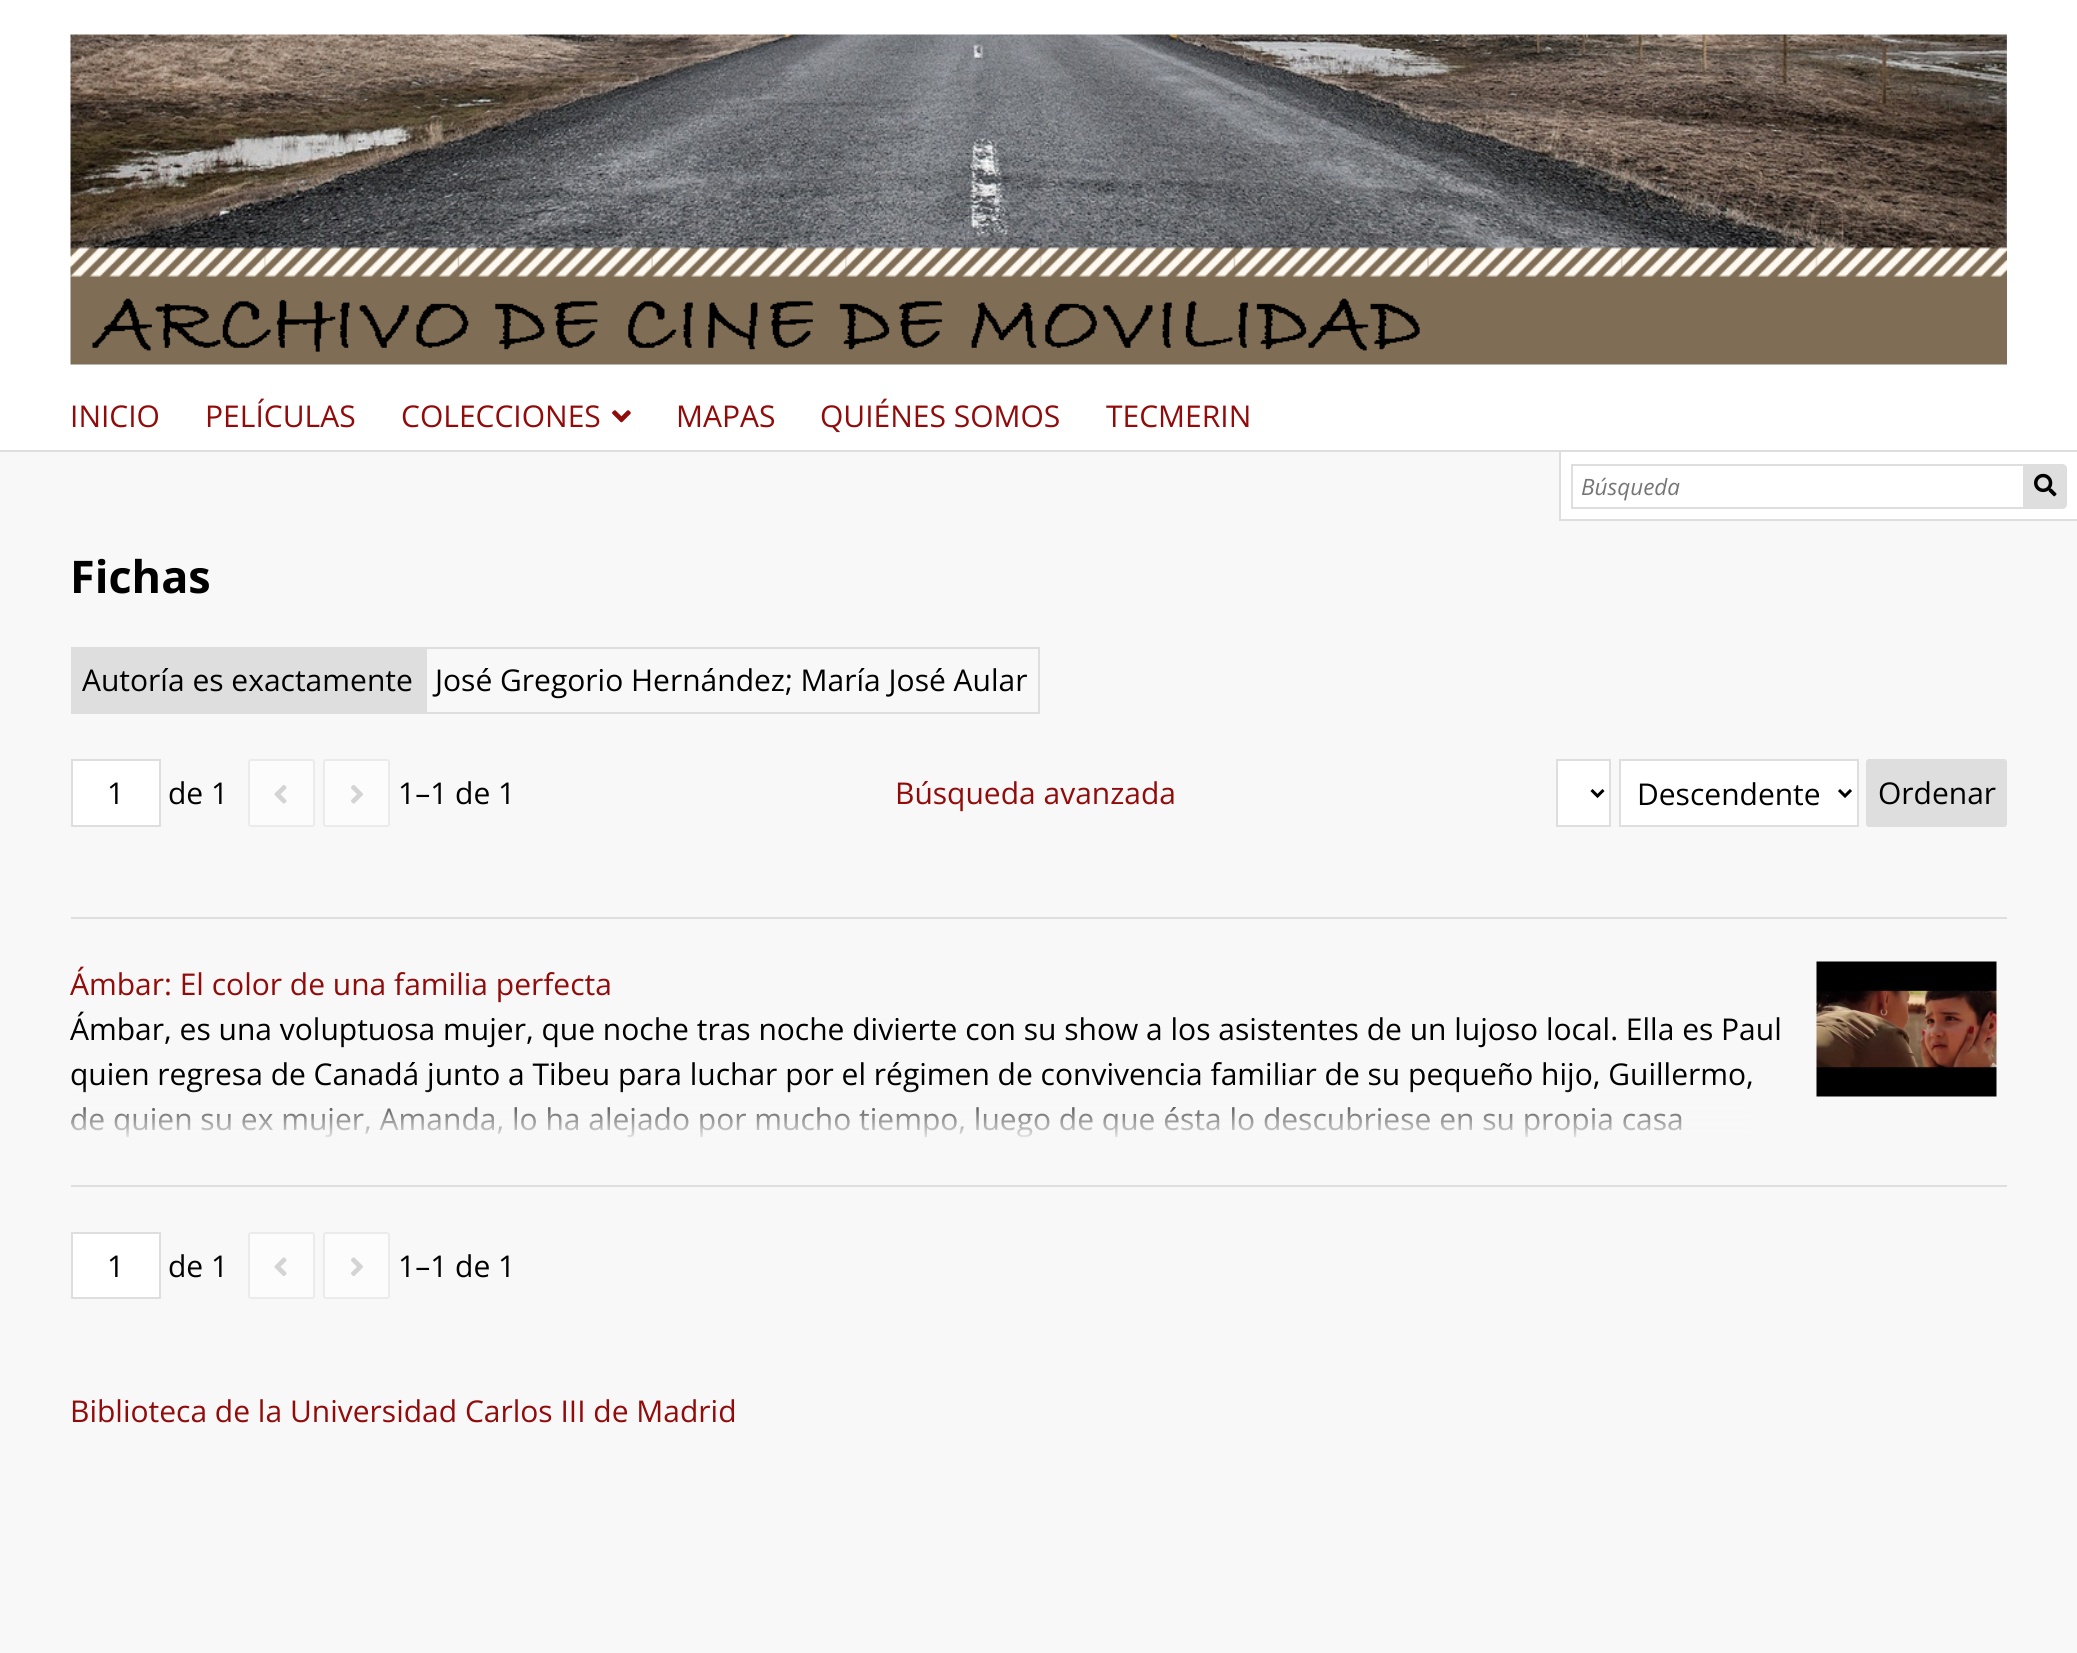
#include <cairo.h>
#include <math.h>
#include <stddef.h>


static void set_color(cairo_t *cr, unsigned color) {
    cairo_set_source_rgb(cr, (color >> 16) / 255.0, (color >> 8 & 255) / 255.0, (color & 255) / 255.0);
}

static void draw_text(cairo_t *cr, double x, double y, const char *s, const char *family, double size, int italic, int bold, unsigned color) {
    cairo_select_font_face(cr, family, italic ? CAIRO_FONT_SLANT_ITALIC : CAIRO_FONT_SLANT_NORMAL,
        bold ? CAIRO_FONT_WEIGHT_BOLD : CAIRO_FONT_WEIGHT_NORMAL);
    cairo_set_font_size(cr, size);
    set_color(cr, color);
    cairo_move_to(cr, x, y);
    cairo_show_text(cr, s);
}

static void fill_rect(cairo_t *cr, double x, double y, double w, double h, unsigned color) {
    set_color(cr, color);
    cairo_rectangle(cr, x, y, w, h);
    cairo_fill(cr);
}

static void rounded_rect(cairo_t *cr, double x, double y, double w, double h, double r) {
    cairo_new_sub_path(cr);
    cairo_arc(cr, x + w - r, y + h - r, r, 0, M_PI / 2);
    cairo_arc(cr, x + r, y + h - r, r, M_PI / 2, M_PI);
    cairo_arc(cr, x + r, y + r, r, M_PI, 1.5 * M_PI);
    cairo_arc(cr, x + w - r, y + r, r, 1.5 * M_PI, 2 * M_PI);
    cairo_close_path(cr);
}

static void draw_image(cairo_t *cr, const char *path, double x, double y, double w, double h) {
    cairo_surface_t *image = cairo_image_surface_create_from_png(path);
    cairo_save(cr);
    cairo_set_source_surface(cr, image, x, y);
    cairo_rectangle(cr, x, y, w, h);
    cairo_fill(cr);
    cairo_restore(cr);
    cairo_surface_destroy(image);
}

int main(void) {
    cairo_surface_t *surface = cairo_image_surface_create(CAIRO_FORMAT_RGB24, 2077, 1653);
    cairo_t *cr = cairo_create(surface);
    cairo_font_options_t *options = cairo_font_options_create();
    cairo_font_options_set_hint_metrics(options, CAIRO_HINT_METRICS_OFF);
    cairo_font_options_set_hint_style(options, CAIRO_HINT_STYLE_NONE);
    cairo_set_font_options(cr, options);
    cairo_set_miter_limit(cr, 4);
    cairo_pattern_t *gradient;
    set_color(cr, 0xF8F8F8);
    cairo_paint(cr);
    fill_rect(cr, 0, 0, 2077, 450, 0xFFFFFF);
    fill_rect(cr, 0, 450, 2077, 2, 0xDEDEDE);
    draw_image(cr, "assets/img1.png", 70, 34, 1937, 331);
    draw_text(cr, 70, 427, "INICIO", "Open Sans", 30, 0, 0, 0x920B0B);
    draw_text(cr, 205, 427, "PELÍCULAS", "Open Sans", 30, 0, 0, 0x920B0B);
    draw_text(cr, 401, 427, "COLECCIONES", "Open Sans", 30, 0, 0, 0x920B0B);
    draw_image(cr, "assets/img2.png", 612, 410, 19, 13);
    draw_text(cr, 676, 427, "MAPAS", "Open Sans", 30, 0, 0, 0x920B0B);
    draw_text(cr, 820, 427, "QUIÉNES SOMOS", "Open Sans", 30, 0, 0, 0x920B0B);
    draw_text(cr, 1106, 427, "TECMERIN", "Open Sans", 30, 0, 0, 0x920B0B);
    fill_rect(cr, 1561, 452, 516, 67, 0xFFFFFF);
    fill_rect(cr, 1559, 519, 518, 2, 0xDEDEDE);
    fill_rect(cr, 1559, 450, 2, 71, 0xDEDEDE);
    cairo_rectangle(cr, 1572, 465, 452, 43);
    cairo_stroke(cr);
    draw_text(cr, 1581, 495, "Búsqueda", "Open Sans", 22.5, 1, 0, 0x757575);
    set_color(cr, 0xDEDEDE);
    cairo_new_path(cr);
    cairo_move_to(cr, 2025, 464);
    cairo_line_to(cr, 2062, 464);
    cairo_curve_to(cr, 2065, 464, 2067, 466, 2067, 469);
    cairo_line_to(cr, 2067, 504);
    cairo_curve_to(cr, 2067, 507, 2065, 509, 2062, 509);
    cairo_line_to(cr, 2025, 509);
    cairo_close_path(cr);
    cairo_fill(cr);
    draw_image(cr, "assets/img3.png", 2034, 473, 23, 24);
    draw_text(cr, 70, 593, "Fichas", "Open Sans", 45, 0, 1, 0x000000);
    fill_rect(cr, 71, 647, 354, 67, 0xDEDEDE);
    draw_text(cr, 82, 691, "Autoría es exactamente", "Open Sans", 30, 0, 0, 0x000000);
    cairo_rectangle(cr, 426, 648, 613, 65);
    set_color(cr, 0xDEDEDE);
    cairo_stroke(cr);
    draw_text(cr, 435, 691, "José Gregorio Hernández; María José Aular", "Open Sans", 30, 0, 0, 0x000000);
    set_color(cr, 0xFFFFFF);
    cairo_rectangle(cr, 72, 760, 88, 66);
    cairo_fill_preserve(cr);
    set_color(cr, 0xDEDEDE);
    cairo_stroke(cr);
    draw_text(cr, 107, 804, "1", "Open Sans", 30, 0, 0, 0x000000);
    draw_text(cr, 168, 804, "de 1", "Open Sans", 30, 0, 0, 0x000000);
    set_color(cr, 0xFCFCFC);
    rounded_rect(cr, 249, 760, 65, 66, 2);
    cairo_fill_preserve(cr);
    set_color(cr, 0xEBEBEB);
    cairo_stroke(cr);
    draw_image(cr, "assets/img4.png", 274, 785, 13, 19);
    set_color(cr, 0xFCFCFC);
    rounded_rect(cr, 324, 760, 65, 66, 2);
    cairo_fill_preserve(cr);
    set_color(cr, 0xEBEBEB);
    cairo_stroke(cr);
    draw_image(cr, "assets/img5.png", 351, 785, 12, 19);
    draw_text(cr, 398, 804, "1–1 de 1", "Open Sans", 30, 0, 0, 0x000000);
    draw_text(cr, 895, 804, "Búsqueda avanzada", "Open Sans", 30, 0, 0, 0x920B0B);
    set_color(cr, 0xFFFFFF);
    cairo_rectangle(cr, 1557, 760, 53, 66);
    cairo_fill_preserve(cr);
    set_color(cr, 0xDEDEDE);
    cairo_stroke(cr);
    cairo_new_path(cr);
    cairo_move_to(cr, 1591.5, 790);
    cairo_line_to(cr, 1597.5, 796);
    cairo_line_to(cr, 1603.5, 790);
    set_color(cr, 0x000000);
    cairo_set_line_width(cr, 3);
    cairo_stroke(cr);
    set_color(cr, 0xFFFFFF);
    cairo_rectangle(cr, 1620, 760, 238, 66);
    cairo_fill_preserve(cr);
    set_color(cr, 0xDEDEDE);
    cairo_set_line_width(cr, 2);
    cairo_stroke(cr);
    cairo_new_path(cr);
    cairo_move_to(cr, 1839, 790);
    cairo_line_to(cr, 1845, 796);
    cairo_line_to(cr, 1851, 790);
    set_color(cr, 0x000000);
    cairo_set_line_width(cr, 3);
    cairo_stroke(cr);
    draw_text(cr, 1637, 805, "Descendente", "Open Sans", 30, 0, 0, 0x000000);
    set_color(cr, 0xDEDEDE);
    rounded_rect(cr, 1866, 759, 141, 68, 3);
    cairo_fill(cr);
    draw_text(cr, 1878, 804, "Ordenar", "Open Sans", 30, 0, 0, 0x000000);
    fill_rect(cr, 71, 917, 1936, 2, 0xDEDEDE);
    fill_rect(cr, 71, 1185, 1936, 2, 0xDEDEDE);
    draw_text(cr, 70, 995, "Ámbar: El color de una familia perfecta", "Open Sans", 30, 0, 0, 0x920B0B);
    draw_image(cr, "assets/img6.png", 1816, 961, 181, 136);
    draw_text(cr, 70, 1040, "Ámbar, es una voluptuosa mujer, que noche tras noche divierte con su show a los asistentes de un lujoso local. Ella es Paul", "Open Sans", 30, 0, 0, 0x000000);
    draw_text(cr, 70, 1085, "quien regresa de Canadá junto a Tibeu para luchar por el régimen de convivencia familiar de su pequeño hijo, Guillermo,", "Open Sans", 30, 0, 0, 0x000000);
    draw_text(cr, 70, 1130, "de quien su ex mujer, Amanda, lo ha alejado por mucho tiempo, luego de que ésta lo descubriese en su propia casa", "Open Sans", 30, 0, 0, 0x000000);
    gradient = cairo_pattern_create_linear(932, 1142, 932, 1086);
    cairo_pattern_add_color_stop_rgba(gradient, 0, 0.973, 0.973, 0.973, 1);
    cairo_pattern_add_color_stop_rgba(gradient, 1, 0.973, 0.973, 0.973, 0);
    cairo_set_source(cr, gradient);
    cairo_pattern_destroy(gradient);
    cairo_rectangle(cr, 72, 1087, 1678, 51);
    cairo_fill(cr);
    set_color(cr, 0xFFFFFF);
    cairo_rectangle(cr, 72, 1233, 88, 65);
    cairo_fill_preserve(cr);
    set_color(cr, 0xDEDEDE);
    cairo_set_line_width(cr, 2);
    cairo_stroke(cr);
    draw_text(cr, 107, 1277, "1", "Open Sans", 30, 0, 0, 0x000000);
    draw_text(cr, 168, 1277, "de 1", "Open Sans", 30, 0, 0, 0x000000);
    set_color(cr, 0xFCFCFC);
    rounded_rect(cr, 249, 1233, 65, 65, 2);
    cairo_fill_preserve(cr);
    set_color(cr, 0xEBEBEB);
    cairo_stroke(cr);
    draw_image(cr, "assets/img7.png", 274, 1257, 13, 19);
    set_color(cr, 0xFCFCFC);
    rounded_rect(cr, 324, 1233, 65, 65, 2);
    cairo_fill_preserve(cr);
    set_color(cr, 0xEBEBEB);
    cairo_stroke(cr);
    draw_image(cr, "assets/img8.png", 351, 1257, 12, 19);
    draw_text(cr, 398, 1277, "1–1 de 1", "Open Sans", 30, 0, 0, 0x000000);
    draw_text(cr, 70, 1422, "Biblioteca de la Universidad Carlos III de Madrid", "Open Sans", 30, 0, 0, 0x920B0B);
    cairo_surface_write_to_png(surface, "output.png");
    cairo_font_options_destroy(options);
    cairo_destroy(cr);
    cairo_surface_destroy(surface);
    return 0;
}
